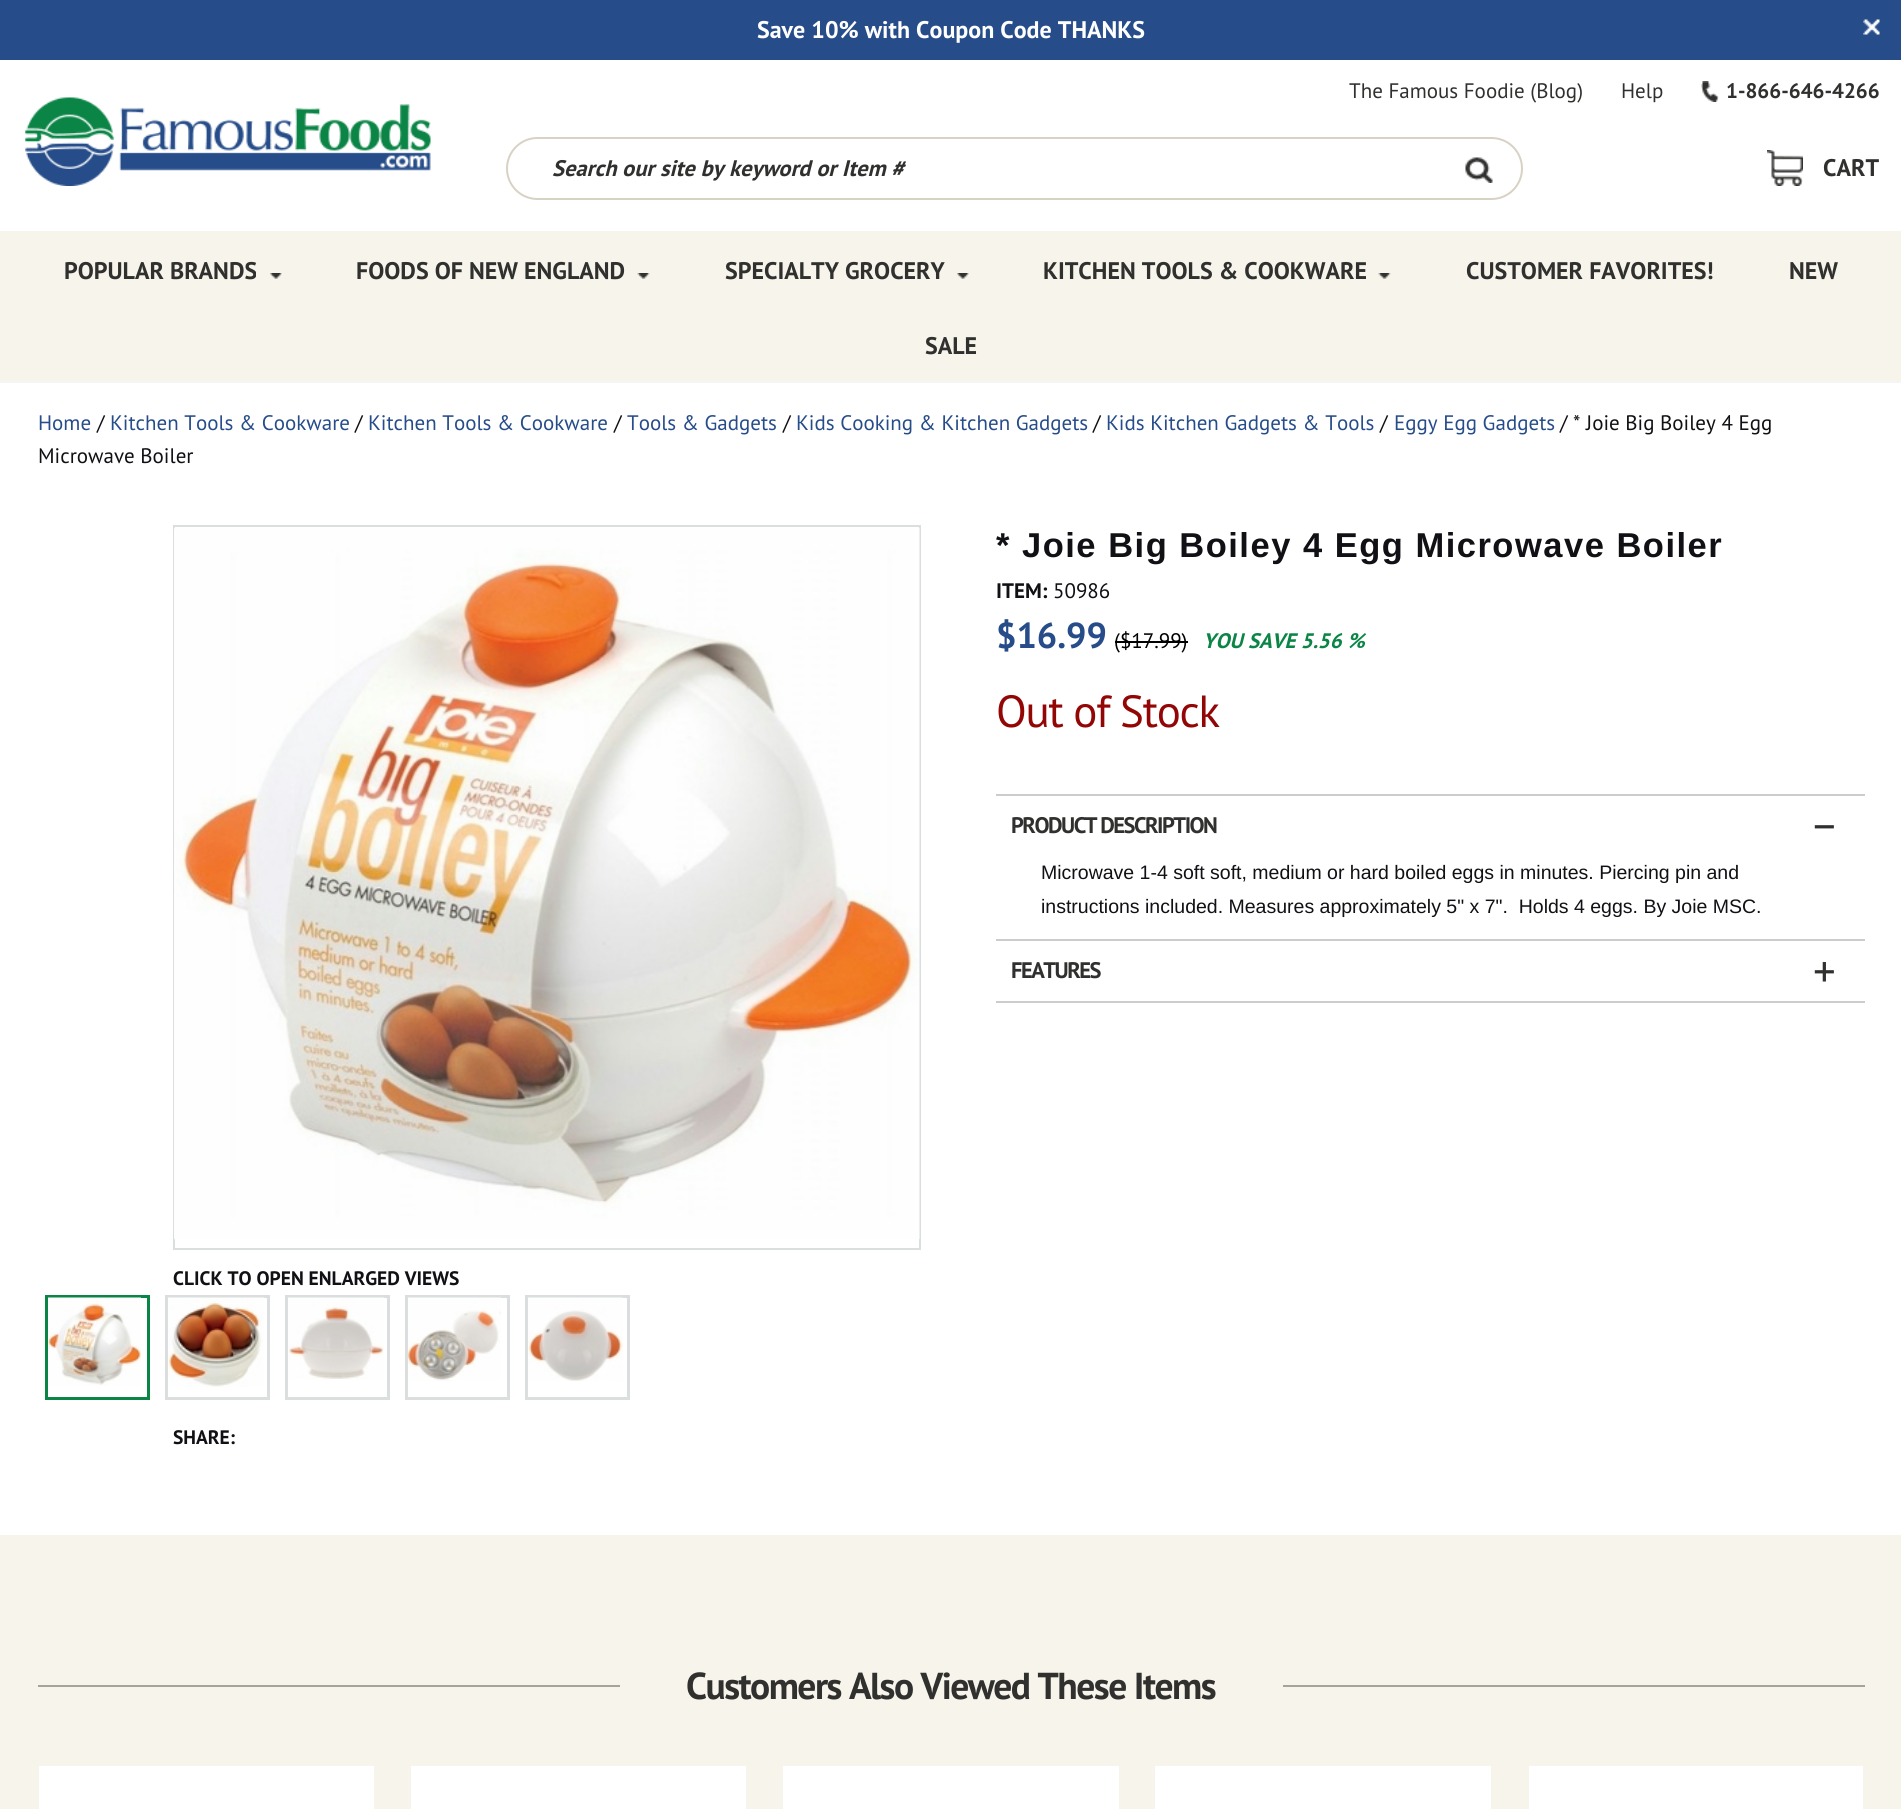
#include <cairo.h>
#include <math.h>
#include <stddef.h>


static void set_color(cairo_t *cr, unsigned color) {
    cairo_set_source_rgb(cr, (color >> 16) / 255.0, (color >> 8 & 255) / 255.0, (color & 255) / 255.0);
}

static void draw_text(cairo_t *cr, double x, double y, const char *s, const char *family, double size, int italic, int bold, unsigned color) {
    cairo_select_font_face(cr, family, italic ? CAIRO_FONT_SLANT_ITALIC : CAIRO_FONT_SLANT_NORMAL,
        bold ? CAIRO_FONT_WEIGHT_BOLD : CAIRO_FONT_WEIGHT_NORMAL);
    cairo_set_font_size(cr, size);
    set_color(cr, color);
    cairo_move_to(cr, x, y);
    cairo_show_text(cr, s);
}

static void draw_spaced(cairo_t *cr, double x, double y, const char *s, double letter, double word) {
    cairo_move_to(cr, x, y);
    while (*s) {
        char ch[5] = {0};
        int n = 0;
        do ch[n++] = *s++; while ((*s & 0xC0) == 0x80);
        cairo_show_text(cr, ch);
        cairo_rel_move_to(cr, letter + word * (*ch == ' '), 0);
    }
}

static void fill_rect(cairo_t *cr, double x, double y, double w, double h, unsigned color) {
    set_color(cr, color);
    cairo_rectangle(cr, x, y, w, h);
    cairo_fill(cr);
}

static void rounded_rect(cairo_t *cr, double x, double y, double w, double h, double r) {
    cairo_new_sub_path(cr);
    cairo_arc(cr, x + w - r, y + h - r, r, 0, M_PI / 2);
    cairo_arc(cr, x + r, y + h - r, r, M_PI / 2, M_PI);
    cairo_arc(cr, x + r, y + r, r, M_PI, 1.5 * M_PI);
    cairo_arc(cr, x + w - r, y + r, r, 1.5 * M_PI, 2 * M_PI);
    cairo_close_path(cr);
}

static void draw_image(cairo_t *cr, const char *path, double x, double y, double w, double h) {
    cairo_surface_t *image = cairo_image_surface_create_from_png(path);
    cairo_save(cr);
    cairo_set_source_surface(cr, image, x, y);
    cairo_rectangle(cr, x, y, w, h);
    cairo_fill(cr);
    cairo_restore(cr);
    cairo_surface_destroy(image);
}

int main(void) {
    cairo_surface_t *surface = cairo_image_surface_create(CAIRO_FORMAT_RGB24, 1901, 1809);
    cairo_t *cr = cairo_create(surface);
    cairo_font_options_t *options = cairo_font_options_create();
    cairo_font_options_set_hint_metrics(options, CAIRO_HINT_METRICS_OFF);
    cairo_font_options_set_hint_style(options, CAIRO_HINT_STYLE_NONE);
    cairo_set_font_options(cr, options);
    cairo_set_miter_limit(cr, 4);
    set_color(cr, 0xFFFFFF);
    cairo_paint(cr);
    fill_rect(cr, 0, 0, 1901, 60, 0x264C89);
    draw_text(cr, 757, 38, "Save 10% with Coupon Code THANKS", "PT Sans", 24, 0, 1, 0xFFFFFF);
    draw_image(cr, "assets/img1.png", 1863, 19, 17, 16);
    draw_image(cr, "assets/img2.png", 25, 97, 406, 89);
    draw_text(cr, 1349, 98, "The Famous Foodie (Blog)", "PT Sans", 21, 0, 0, 0x30302E);
    draw_text(cr, 1621, 98, "Help", "PT Sans", 21, 0, 0, 0x30302E);
    draw_image(cr, "assets/img3.png", 1701, 81, 18, 21);
    draw_text(cr, 1726, 98, "1-866-646-4266", "PT Sans", 21, 0, 1, 0x30302E);
    rounded_rect(cr, 507, 138, 1015, 61, 30.5);
    set_color(cr, 0xD7D2C4);
    cairo_stroke(cr);
    draw_text(cr, 552, 176, "Search our site by keyword or Item #", "PT Sans", 22.5, 1, 1, 0x30302E);
    draw_image(cr, "assets/img4.png", 1465, 157, 28, 26);
    draw_image(cr, "assets/img5.png", 1767, 150, 36, 36);
    draw_text(cr, 1823, 176, "CART", "PT Sans", 24, 0, 1, 0x30302E);
    fill_rect(cr, 0, 231, 1901, 150, 0xF7F4EB);
    fill_rect(cr, 0, 381, 1901, 2, 0xF5F5F5);
    draw_text(cr, 64, 279, "POPULAR BRANDS", "PT Sans", 24, 0, 1, 0x30302E);
    draw_image(cr, "assets/img6.png", 270, 273, 12, 6);
    draw_text(cr, 356, 279, "FOODS OF NEW ENGLAND", "PT Sans", 24, 0, 1, 0x30302E);
    draw_image(cr, "assets/img7.png", 637, 273, 13, 6);
    draw_text(cr, 725, 279, "SPECIALTY GROCERY", "PT Sans", 24, 0, 1, 0x30302E);
    draw_image(cr, "assets/img8.png", 957, 273, 12, 6);
    draw_text(cr, 1043, 279, "KITCHEN TOOLS & COOKWARE", "PT Sans", 24, 0, 1, 0x30302E);
    draw_image(cr, "assets/img7.png", 1378, 273, 13, 6);
    draw_text(cr, 1466, 279, "CUSTOMER FAVORITES!", "PT Sans", 24, 0, 1, 0x30302E);
    draw_text(cr, 1789, 279, "NEW", "PT Sans", 24, 0, 1, 0x30302E);
    draw_text(cr, 925, 354, "SALE", "PT Sans", 24, 0, 1, 0x30302E);
    draw_text(cr, 38, 430, "Home", "PT Sans", 21, 0, 0, 0x264C89);
    draw_text(cr, 97, 430, "/", "PT Sans", 21, 0, 0, 0x101015);
    draw_text(cr, 110, 430, "Kitchen Tools & Cookware", "PT Sans", 21, 0, 0, 0x264C89);
    draw_text(cr, 355, 430, "/", "PT Sans", 21, 0, 0, 0x101015);
    draw_text(cr, 368, 430, "Kitchen Tools & Cookware", "PT Sans", 21, 0, 0, 0x264C89);
    draw_text(cr, 614, 430, "/", "PT Sans", 21, 0, 0, 0x101015);
    draw_text(cr, 627, 430, "Tools & Gadgets", "PT Sans", 21, 0, 0, 0x264C89);
    draw_text(cr, 783, 430, "/", "PT Sans", 21, 0, 0, 0x101015);
    draw_text(cr, 796, 430, "Kids Cooking & Kitchen Gadgets", "PT Sans", 21, 0, 0, 0x264C89);
    draw_text(cr, 1093, 430, "/", "PT Sans", 21, 0, 0, 0x101015);
    draw_text(cr, 1106, 430, "Kids Kitchen Gadgets & Tools", "PT Sans", 21, 0, 0, 0x264C89);
    draw_text(cr, 1380, 430, "/", "PT Sans", 21, 0, 0, 0x101015);
    draw_text(cr, 1394, 430, "Eggy Egg Gadgets", "PT Sans", 21, 0, 0, 0x264C89);
    draw_text(cr, 1560, 430, "/ * Joie Big Boiley 4 Egg", "PT Sans", 21, 0, 0, 0x101015);
    draw_text(cr, 38, 463, "Microwave Boiler", "PT Sans", 21, 0, 0, 0x101015);
    cairo_select_font_face(cr, "Liberation Sans", CAIRO_FONT_SLANT_NORMAL, CAIRO_FONT_WEIGHT_BOLD);
    cairo_set_font_size(cr, 34.5);
    draw_spaced(cr, 996, 557, "* Joie Big Boiley 4 Egg Microwave Boiler", 1.5, 0);
    draw_text(cr, 996, 598, "ITEM:", "PT Sans", 21, 0, 1, 0x101015);
    draw_text(cr, 1053, 598, "50986", "PT Sans", 21, 0, 0, 0x101015);
    draw_text(cr, 996, 648, "$16.99", "PT Sans", 36, 0, 1, 0x264C89);
    draw_text(cr, 1114, 648, "($17.99)", "PT Sans", 21, 0, 0, 0x000000);
    fill_rect(cr, 1115, 641, 73, 2, 0x000000);
    draw_text(cr, 1203, 648, "YOU SAVE 5.56 %", "PT Sans", 21, 1, 1, 0x0B8546);
    cairo_select_font_face(cr, "PT Sans", CAIRO_FONT_SLANT_NORMAL, CAIRO_FONT_WEIGHT_NORMAL);
    cairo_set_font_size(cr, 45);
    set_color(cr, 0x920606);
    draw_spaced(cr, 996, 727, "Out of Stock", -1.25, 0);
    fill_rect(cr, 996, 1001, 869, 2, 0xCCCCCC);
    fill_rect(cr, 996, 794, 869, 2, 0xCCCCCC);
    cairo_select_font_face(cr, "PT Sans", CAIRO_FONT_SLANT_NORMAL, CAIRO_FONT_WEIGHT_BOLD);
    cairo_set_font_size(cr, 22.5);
    set_color(cr, 0x30302E);
    draw_spaced(cr, 1011, 833, "PRODUCT DESCRIPTION", -1.5, 0);
    cairo_select_font_face(cr, "PT Sans", CAIRO_FONT_SLANT_NORMAL, CAIRO_FONT_WEIGHT_NORMAL);
    cairo_set_font_size(cr, 45);
    draw_spaced(cr, 1813, 842, "−", -1.5, 0);
    draw_text(cr, 1041, 879, "Microwave 1-4 soft soft, medium or hard boiled eggs in minutes. Piercing pin and", "Liberation Sans", 19.5, 0, 0, 0x101015);
    draw_text(cr, 1041, 913, "instructions included. Measures approximately 5\" x 7\".  Holds 4 eggs. By Joie MSC.", "Liberation Sans", 19.5, 0, 0, 0x101015);
    fill_rect(cr, 996, 939, 869, 2, 0xCCCCCC);
    cairo_select_font_face(cr, "PT Sans", CAIRO_FONT_SLANT_NORMAL, CAIRO_FONT_WEIGHT_BOLD);
    cairo_set_font_size(cr, 22.5);
    set_color(cr, 0x30302E);
    draw_spaced(cr, 1011, 978, "FEATURES", -1.5, 0);
    cairo_select_font_face(cr, "PT Sans", CAIRO_FONT_SLANT_NORMAL, CAIRO_FONT_WEIGHT_NORMAL);
    cairo_set_font_size(cr, 45);
    draw_spaced(cr, 1813, 987, "+", -1.5, 0);
    cairo_rectangle(cr, 174, 526, 746, 723);
    set_color(cr, 0xDBDEDF);
    cairo_stroke(cr);
    draw_image(cr, "assets/img9.png", 174, 527, 746, 713);
    draw_text(cr, 173, 1285, "CLICK TO OPEN ENLARGED VIEWS", "PT Sans", 19.5, 0, 1, 0x101015);
    cairo_rectangle(cr, 46.5, 1296.5, 102, 102);
    set_color(cr, 0x0B8546);
    cairo_set_line_width(cr, 3);
    cairo_stroke(cr);
    draw_image(cr, "assets/img10.png", 48, 1297, 93, 89);
    cairo_rectangle(cr, 166.5, 1296.5, 102, 102);
    set_color(cr, 0xDBDEDF);
    cairo_stroke(cr);
    draw_image(cr, "assets/img11.png", 168, 1297, 96, 90);
    cairo_rectangle(cr, 286.5, 1296.5, 102, 102);
    cairo_stroke(cr);
    draw_image(cr, "assets/img12.png", 288, 1297, 96, 83);
    cairo_rectangle(cr, 406.5, 1296.5, 102, 102);
    cairo_stroke(cr);
    draw_image(cr, "assets/img13.png", 408, 1297, 93, 84);
    cairo_rectangle(cr, 526.5, 1296.5, 102, 102);
    cairo_stroke(cr);
    draw_image(cr, "assets/img14.png", 528, 1297, 95, 84);
    draw_text(cr, 173, 1444, "SHARE:", "PT Sans", 19.5, 0, 1, 0x101015);
    fill_rect(cr, 0, 1535, 1901, 274, 0xF7F4EB);
    fill_rect(cr, 38, 1685, 1827, 2, 0xA7A398);
    fill_rect(cr, 620, 1685, 663, 2, 0xF7F4EB);
    cairo_set_font_size(cr, 37.5);
    set_color(cr, 0x30302E);
    draw_spaced(cr, 686, 1699, "Customers Also Viewed These Items", -1.5, 0);
    fill_rect(cr, 39, 1766, 335, 43, 0xFFFFFF);
    fill_rect(cr, 411, 1766, 335, 43, 0xFFFFFF);
    fill_rect(cr, 783, 1766, 336, 43, 0xFFFFFF);
    fill_rect(cr, 1155, 1766, 336, 43, 0xFFFFFF);
    fill_rect(cr, 1529, 1766, 334, 43, 0xFFFFFF);
    cairo_surface_write_to_png(surface, "output.png");
    cairo_font_options_destroy(options);
    cairo_destroy(cr);
    cairo_surface_destroy(surface);
    return 0;
}
